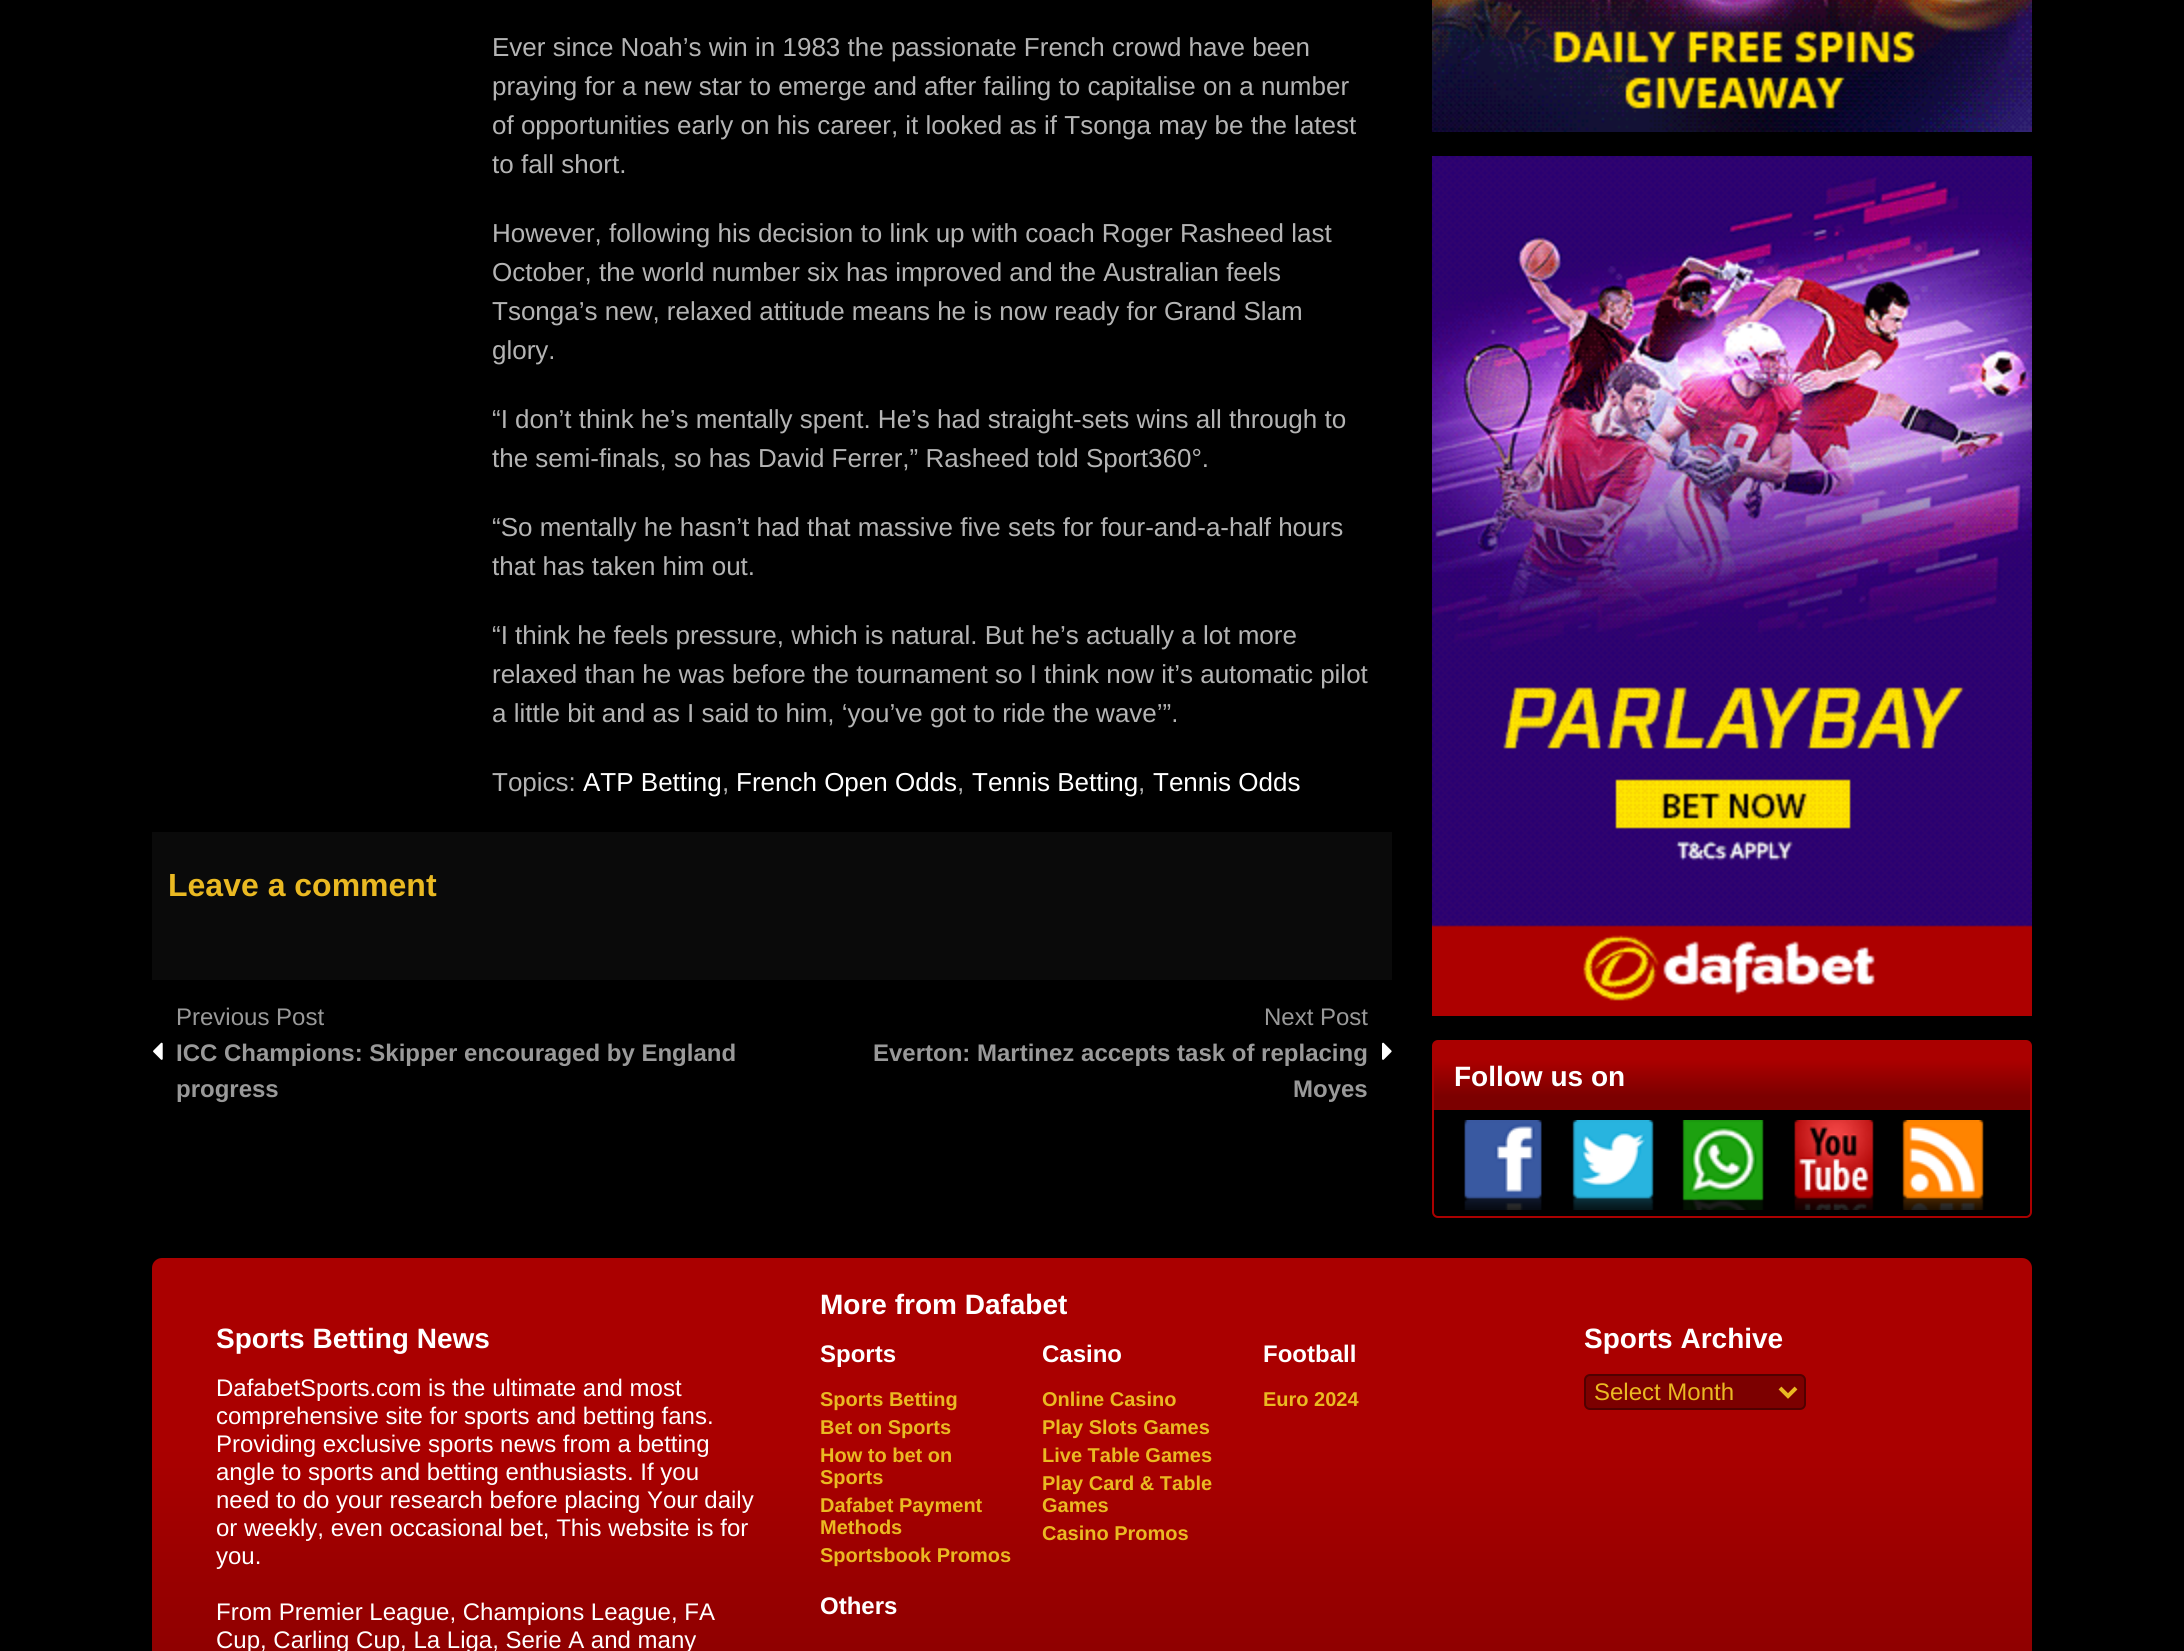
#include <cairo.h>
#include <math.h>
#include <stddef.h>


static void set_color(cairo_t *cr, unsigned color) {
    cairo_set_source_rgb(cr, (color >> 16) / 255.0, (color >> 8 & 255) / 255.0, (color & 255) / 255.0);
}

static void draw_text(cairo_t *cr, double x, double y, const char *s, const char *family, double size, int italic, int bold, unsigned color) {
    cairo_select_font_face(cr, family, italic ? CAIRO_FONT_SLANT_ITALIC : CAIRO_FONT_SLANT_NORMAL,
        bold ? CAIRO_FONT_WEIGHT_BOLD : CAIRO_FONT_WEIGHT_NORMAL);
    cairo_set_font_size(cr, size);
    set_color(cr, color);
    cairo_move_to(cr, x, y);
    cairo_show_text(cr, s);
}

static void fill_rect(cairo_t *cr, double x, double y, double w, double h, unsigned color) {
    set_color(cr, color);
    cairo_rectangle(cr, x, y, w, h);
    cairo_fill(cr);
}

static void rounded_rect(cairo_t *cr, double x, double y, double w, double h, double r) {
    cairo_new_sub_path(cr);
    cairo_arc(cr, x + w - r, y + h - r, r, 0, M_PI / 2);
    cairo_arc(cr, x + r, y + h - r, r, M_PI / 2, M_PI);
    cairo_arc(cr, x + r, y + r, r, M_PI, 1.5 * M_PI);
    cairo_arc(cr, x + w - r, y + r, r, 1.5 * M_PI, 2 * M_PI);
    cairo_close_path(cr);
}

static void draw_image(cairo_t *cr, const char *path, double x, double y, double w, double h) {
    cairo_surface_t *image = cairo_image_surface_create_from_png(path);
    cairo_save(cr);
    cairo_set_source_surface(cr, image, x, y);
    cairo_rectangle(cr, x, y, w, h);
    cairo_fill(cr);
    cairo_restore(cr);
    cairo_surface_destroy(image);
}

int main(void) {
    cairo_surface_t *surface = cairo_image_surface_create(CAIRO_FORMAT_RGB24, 2184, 1651);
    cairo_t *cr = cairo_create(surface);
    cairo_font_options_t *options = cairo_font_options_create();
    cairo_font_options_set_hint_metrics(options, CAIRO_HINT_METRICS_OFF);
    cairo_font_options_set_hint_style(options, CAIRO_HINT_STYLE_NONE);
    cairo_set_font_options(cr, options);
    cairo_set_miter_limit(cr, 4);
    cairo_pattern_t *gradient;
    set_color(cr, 0x000000);
    cairo_paint(cr);
    draw_text(cr, 492, 56, "Ever since Noah’s win in 1983 the passionate French crowd have been", "Liberation Sans", 26, 0, 0, 0xB4B4B4);
    draw_text(cr, 492, 95, "praying for a new star to emerge and after failing to capitalise on a number", "Liberation Sans", 26, 0, 0, 0xB4B4B4);
    draw_text(cr, 492, 134, "of opportunities early on his career, it looked as if Tsonga may be the latest", "Liberation Sans", 26, 0, 0, 0xB4B4B4);
    draw_text(cr, 492, 173, "to fall short.", "Liberation Sans", 26, 0, 0, 0xB4B4B4);
    draw_text(cr, 492, 242, "However, following his decision to link up with coach Roger Rasheed last", "Liberation Sans", 26, 0, 0, 0xB4B4B4);
    draw_text(cr, 492, 281, "October, the world number six has improved and the Australian feels", "Liberation Sans", 26, 0, 0, 0xB4B4B4);
    draw_text(cr, 492, 320, "Tsonga’s new, relaxed attitude means he is now ready for Grand Slam", "Liberation Sans", 26, 0, 0, 0xB4B4B4);
    draw_text(cr, 492, 359, "glory.", "Liberation Sans", 26, 0, 0, 0xB4B4B4);
    draw_text(cr, 492, 428, "“I don’t think he’s mentally spent. He’s had straight-sets wins all through to", "Liberation Sans", 26, 0, 0, 0xB4B4B4);
    draw_text(cr, 492, 467, "the semi-finals, so has David Ferrer,” Rasheed told Sport360°.", "Liberation Sans", 26, 0, 0, 0xB4B4B4);
    draw_text(cr, 492, 536, "“So mentally he hasn’t had that massive five sets for four-and-a-half hours", "Liberation Sans", 26, 0, 0, 0xB4B4B4);
    draw_text(cr, 492, 575, "that has taken him out.", "Liberation Sans", 26, 0, 0, 0xB4B4B4);
    draw_text(cr, 492, 644, "“I think he feels pressure, which is natural. But he’s actually a lot more", "Liberation Sans", 26, 0, 0, 0xB4B4B4);
    draw_text(cr, 492, 683, "relaxed than he was before the tournament so I think now it’s automatic pilot", "Liberation Sans", 26, 0, 0, 0xB4B4B4);
    draw_text(cr, 492, 722, "a little bit and as I said to him, ‘you’ve got to ride the wave’”.", "Liberation Sans", 26, 0, 0, 0xB4B4B4);
    draw_text(cr, 492, 791, "Topics:", "Liberation Sans", 26, 0, 0, 0xB4B4B4);
    draw_text(cr, 583, 791, "ATP Betting", "Liberation Sans", 26, 0, 0, 0xFFFFFF);
    draw_text(cr, 722, 791, ",", "Liberation Sans", 26, 0, 0, 0xB4B4B4);
    draw_text(cr, 736, 791, "French Open Odds", "Liberation Sans", 26, 0, 0, 0xFFFFFF);
    draw_text(cr, 957, 791, ",", "Liberation Sans", 26, 0, 0, 0xB4B4B4);
    draw_text(cr, 972, 791, "Tennis Betting", "Liberation Sans", 26, 0, 0, 0xFFFFFF);
    draw_text(cr, 1138, 791, ",", "Liberation Sans", 26, 0, 0, 0xB4B4B4);
    draw_text(cr, 1153, 791, "Tennis Odds", "Liberation Sans", 26, 0, 0, 0xFFFFFF);
    fill_rect(cr, 152, 832, 1240, 148, 0x0A0A0A);
    draw_text(cr, 168, 896, "Leave a comment", "Liberation Sans", 32, 0, 1, 0xEAB922);
    draw_image(cr, "assets/img1.png", 153, 1042, 10, 18);
    draw_text(cr, 176, 1025, "Previous Post", "Liberation Sans", 24, 0, 0, 0x999999);
    draw_text(cr, 176, 1061, "ICC Champions: Skipper encouraged by England", "Liberation Sans", 24, 0, 1, 0x999999);
    draw_text(cr, 176, 1097, "progress", "Liberation Sans", 24, 0, 1, 0x999999);
    draw_text(cr, 1264, 1025, "Next Post", "Liberation Sans", 24, 0, 0, 0x999999);
    draw_text(cr, 873, 1061, "Everton: Martinez accepts task of replacing", "Liberation Sans", 24, 0, 1, 0x999999);
    draw_text(cr, 1293, 1097, "Moyes", "Liberation Sans", 24, 0, 1, 0x999999);
    draw_image(cr, "assets/img2.png", 1382, 1042, 10, 18);
    draw_image(cr, "assets/img3.png", 1432, 0, 600, 132);
    draw_image(cr, "assets/img4.png", 1432, 156, 600, 860);
    rounded_rect(cr, 1433, 1041, 598, 176, 5);
    set_color(cr, 0xAA0000);
    cairo_stroke(cr);
    gradient = cairo_pattern_create_linear(1434, 1110, 1434, 1042);
    cairo_pattern_add_color_stop_rgba(gradient, 0.2, 0.486, 0, 0, 1);
    cairo_pattern_add_color_stop_rgba(gradient, 0.72, 0.667, 0, 0, 1);
    cairo_set_source(cr, gradient);
    cairo_pattern_destroy(gradient);
    cairo_rectangle(cr, 1434, 1042, 596, 68);
    cairo_fill(cr);
    draw_text(cr, 1454, 1086, "Follow us on", "Liberation Sans", 28, 0, 1, 0xFFFFFF);
    draw_image(cr, "assets/img5.png", 1464, 1120, 78, 90);
    draw_image(cr, "assets/img6.png", 1572, 1120, 82, 90);
    draw_image(cr, "assets/img7.png", 1682, 1120, 82, 90);
    draw_image(cr, "assets/img8.png", 1794, 1120, 80, 90);
    draw_image(cr, "assets/img9.png", 1902, 1120, 82, 90);
    gradient = cairo_pattern_create_linear(152, 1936, 152, 1258);
    cairo_pattern_add_color_stop_rgba(gradient, 0.2, 0.486, 0, 0, 1);
    cairo_pattern_add_color_stop_rgba(gradient, 0.72, 0.667, 0, 0, 1);
    cairo_set_source(cr, gradient);
    cairo_pattern_destroy(gradient);
    rounded_rect(cr, 152, 1258, 1880, 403, 10);
    cairo_fill(cr);
    draw_text(cr, 216, 1348, "Sports Betting News", "Liberation Sans", 28, 0, 1, 0xFFFFFF);
    draw_text(cr, 216, 1396, "DafabetSports.com is the ultimate and most", "Liberation Sans", 24, 0, 0, 0xFFFFFF);
    draw_text(cr, 216, 1424, "comprehensive site for sports and betting fans.", "Liberation Sans", 24, 0, 0, 0xFFFFFF);
    draw_text(cr, 216, 1452, "Providing exclusive sports news from a betting", "Liberation Sans", 24, 0, 0, 0xFFFFFF);
    draw_text(cr, 216, 1480, "angle to sports and betting enthusiasts. If you", "Liberation Sans", 24, 0, 0, 0xFFFFFF);
    draw_text(cr, 216, 1508, "need to do your research before placing Your daily", "Liberation Sans", 24, 0, 0, 0xFFFFFF);
    draw_text(cr, 216, 1536, "or weekly, even occasional bet, This website is for", "Liberation Sans", 24, 0, 0, 0xFFFFFF);
    draw_text(cr, 216, 1564, "you.", "Liberation Sans", 24, 0, 0, 0xFFFFFF);
    draw_text(cr, 216, 1620, "From Premier League, Champions League, FA", "Liberation Sans", 24, 0, 0, 0xFFFFFF);
    draw_text(cr, 216, 1648, "Cup, Carling Cup, La Liga, Serie A and many", "Liberation Sans", 24, 0, 0, 0xFFFFFF);
    draw_text(cr, 820, 1314, "More from Dafabet", "Liberation Sans", 28, 0, 1, 0xFFFFFF);
    draw_text(cr, 820, 1362, "Sports", "Liberation Sans", 24, 0, 1, 0xFFFFFF);
    draw_text(cr, 820, 1406, "Sports Betting", "Liberation Sans", 20, 0, 1, 0xEAB922);
    draw_text(cr, 820, 1434, "Bet on Sports", "Liberation Sans", 20, 0, 1, 0xEAB922);
    draw_text(cr, 820, 1462, "How to bet on", "Liberation Sans", 20, 0, 1, 0xEAB922);
    draw_text(cr, 820, 1484, "Sports", "Liberation Sans", 20, 0, 1, 0xEAB922);
    draw_text(cr, 820, 1512, "Dafabet Payment", "Liberation Sans", 20, 0, 1, 0xEAB922);
    draw_text(cr, 820, 1534, "Methods", "Liberation Sans", 20, 0, 1, 0xEAB922);
    draw_text(cr, 820, 1562, "Sportsbook Promos", "Liberation Sans", 20, 0, 1, 0xEAB922);
    draw_text(cr, 1042, 1362, "Casino", "Liberation Sans", 24, 0, 1, 0xFFFFFF);
    draw_text(cr, 1042, 1406, "Online Casino", "Liberation Sans", 20, 0, 1, 0xEAB922);
    draw_text(cr, 1042, 1434, "Play Slots Games", "Liberation Sans", 20, 0, 1, 0xEAB922);
    draw_text(cr, 1042, 1462, "Live Table Games", "Liberation Sans", 20, 0, 1, 0xEAB922);
    draw_text(cr, 1042, 1490, "Play Card & Table", "Liberation Sans", 20, 0, 1, 0xEAB922);
    draw_text(cr, 1042, 1512, "Games", "Liberation Sans", 20, 0, 1, 0xEAB922);
    draw_text(cr, 1042, 1540, "Casino Promos", "Liberation Sans", 20, 0, 1, 0xEAB922);
    draw_text(cr, 1263, 1362, "Football", "Liberation Sans", 24, 0, 1, 0xFFFFFF);
    draw_text(cr, 1263, 1406, "Euro 2024", "Liberation Sans", 20, 0, 1, 0xEAB922);
    draw_text(cr, 820, 1614, "Others", "Liberation Sans", 24, 0, 1, 0xFFFFFF);
    draw_text(cr, 1584, 1348, "Sports Archive", "Liberation Sans", 28, 0, 1, 0xFFFFFF);
    set_color(cr, 0x7C0000);
    rounded_rect(cr, 1585, 1375, 220, 34, 5);
    cairo_fill_preserve(cr);
    set_color(cr, 0x510000);
    cairo_stroke(cr);
    cairo_new_path(cr);
    cairo_move_to(cr, 1780, 1388);
    cairo_line_to(cr, 1788, 1396);
    cairo_line_to(cr, 1796, 1388);
    set_color(cr, 0xEAB922);
    cairo_set_line_width(cr, 4);
    cairo_stroke(cr);
    draw_text(cr, 1594, 1400, "Select Month", "Liberation Sans", 24, 0, 0, 0xEAB922);
    cairo_surface_write_to_png(surface, "output.png");
    cairo_font_options_destroy(options);
    cairo_destroy(cr);
    cairo_surface_destroy(surface);
    return 0;
}
